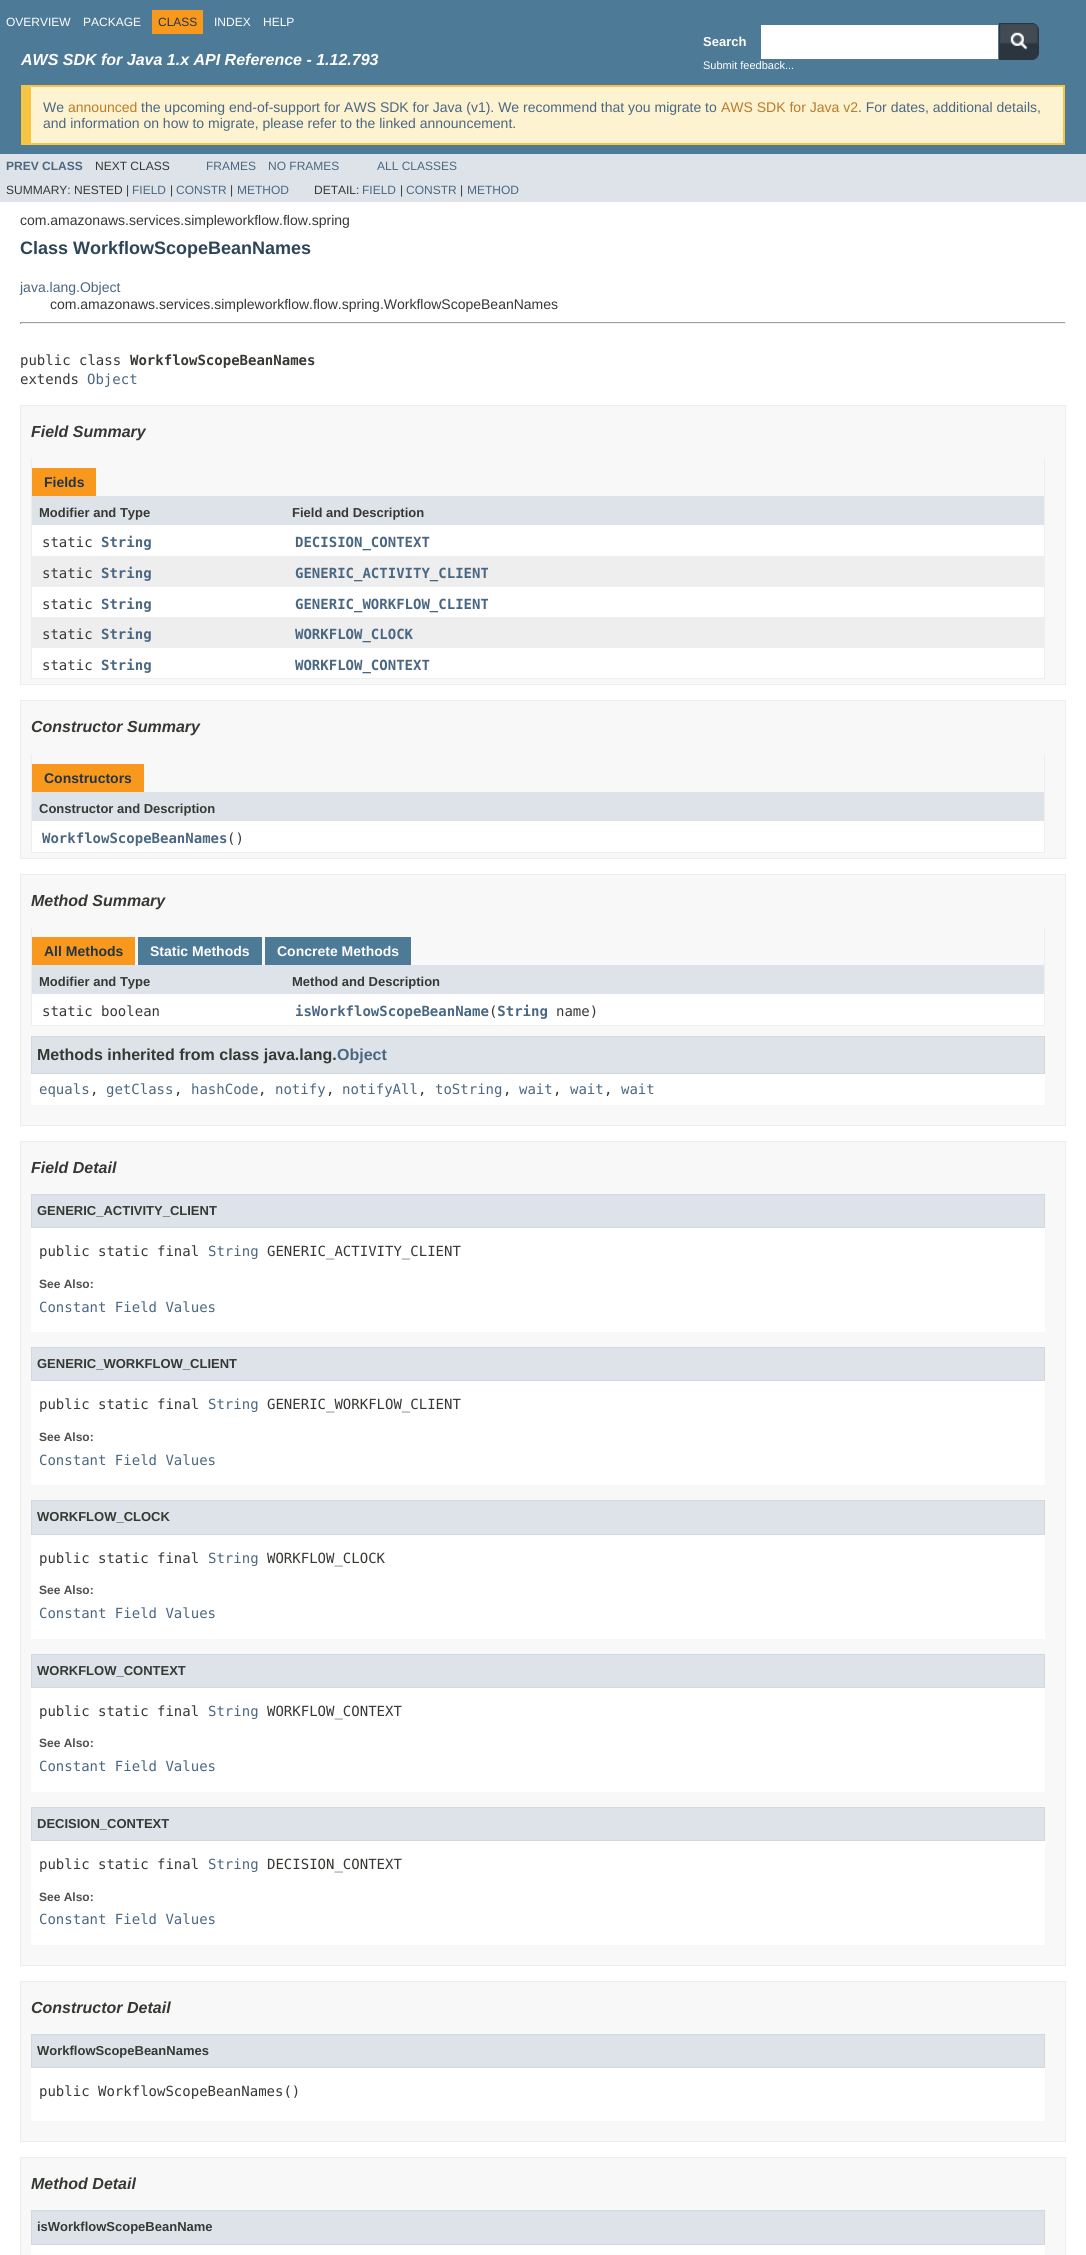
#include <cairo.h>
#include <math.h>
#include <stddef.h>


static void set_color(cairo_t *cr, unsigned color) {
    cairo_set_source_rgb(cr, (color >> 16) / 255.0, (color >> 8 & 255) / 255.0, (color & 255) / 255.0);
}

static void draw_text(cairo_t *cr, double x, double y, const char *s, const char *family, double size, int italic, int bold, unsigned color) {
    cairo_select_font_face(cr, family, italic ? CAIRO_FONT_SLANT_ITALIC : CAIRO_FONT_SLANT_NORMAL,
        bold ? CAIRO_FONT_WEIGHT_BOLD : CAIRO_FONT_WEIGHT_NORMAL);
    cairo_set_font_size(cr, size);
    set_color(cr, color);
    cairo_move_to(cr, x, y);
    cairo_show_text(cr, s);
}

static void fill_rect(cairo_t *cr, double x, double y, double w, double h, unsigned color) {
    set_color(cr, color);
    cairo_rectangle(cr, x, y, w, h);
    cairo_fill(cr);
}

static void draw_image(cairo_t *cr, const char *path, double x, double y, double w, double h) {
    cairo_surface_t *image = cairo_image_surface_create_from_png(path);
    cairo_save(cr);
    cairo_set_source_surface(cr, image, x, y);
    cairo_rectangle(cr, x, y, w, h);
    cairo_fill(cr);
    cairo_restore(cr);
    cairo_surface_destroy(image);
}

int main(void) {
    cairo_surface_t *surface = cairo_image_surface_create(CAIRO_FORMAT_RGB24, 1086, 2255);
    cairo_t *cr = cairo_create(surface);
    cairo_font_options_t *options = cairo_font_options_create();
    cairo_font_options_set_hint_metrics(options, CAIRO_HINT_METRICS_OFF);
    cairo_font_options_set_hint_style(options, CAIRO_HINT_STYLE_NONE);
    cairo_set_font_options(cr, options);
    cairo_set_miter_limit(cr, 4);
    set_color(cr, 0xFFFFFF);
    cairo_paint(cr);
    fill_rect(cr, 0, 0, 1086, 154, 0x4D7A97);
    draw_text(cr, 6, 26, "OVERVIEW", "Liberation Sans", 12, 0, 0, 0xFFFFFF);
    draw_text(cr, 83, 26, "PACKAGE", "Liberation Sans", 12, 0, 0, 0xFFFFFF);
    fill_rect(cr, 152, 10, 51, 24, 0xF8981D);
    draw_text(cr, 158, 26, "CLASS", "Liberation Sans", 12, 0, 0, 0x253441);
    draw_text(cr, 214, 26, "INDEX", "Liberation Sans", 12, 0, 0, 0xFFFFFF);
    draw_text(cr, 263, 26, "HELP", "Liberation Sans", 12, 0, 0, 0xFFFFFF);
    draw_text(cr, 21, 65, "AWS SDK for Java 1.x API Reference - 1.12.793", "Liberation Sans", 16, 1, 1, 0xFFFFFF);
    draw_text(cr, 703, 46, "Search", "Liberation Sans", 13, 0, 1, 0xFFFFFF);
    fill_rect(cr, 761, 25, 237, 34, 0xFFFFFF);
    draw_image(cr, "assets/img1.png", 999, 23, 40, 37);
    draw_text(cr, 703, 69, "Submit feedback...", "Liberation Sans", 11, 0, 0, 0xFFFFFF);
    fill_rect(cr, 31, 87, 1032, 56, 0xFDF3D0);
    fill_rect(cr, 31, 85, 1034, 2, 0xF7C544);
    fill_rect(cr, 1063, 85, 2, 60, 0xF7C544);
    fill_rect(cr, 31, 143, 1034, 2, 0xF7C544);
    fill_rect(cr, 21, 85, 10, 60, 0xF7C544);
    draw_text(cr, 43, 112, "We", "Liberation Sans", 14, 0, 0, 0x4A6782);
    draw_text(cr, 68, 112, "announced", "Liberation Sans", 14, 0, 0, 0xBB7A2A);
    draw_text(cr, 141, 112, "the upcoming end-of-support for AWS SDK for Java (v1). We recommend that you migrate to", "Liberation Sans", 14, 0, 0, 0x4A6782);
    draw_text(cr, 721, 112, "AWS SDK for Java v2", "Liberation Sans", 14, 0, 0, 0xBB7A2A);
    draw_text(cr, 858, 112, ". For dates, additional details,", "Liberation Sans", 14, 0, 0, 0x4A6782);
    draw_text(cr, 43, 128, "and information on how to migrate, please refer to the linked announcement.", "Liberation Sans", 14, 0, 0, 0x4A6782);
    fill_rect(cr, 0, 154, 1086, 48, 0xDEE3E9);
    draw_text(cr, 6, 170, "PREV CLASS", "Liberation Sans", 12, 0, 1, 0x4A6782);
    draw_text(cr, 95, 170, "NEXT CLASS", "Liberation Sans", 12, 0, 0, 0x353833);
    draw_text(cr, 206, 170, "FRAMES", "Liberation Sans", 12, 0, 0, 0x4A6782);
    draw_text(cr, 268, 170, "NO FRAMES", "Liberation Sans", 12, 0, 0, 0x4A6782);
    draw_text(cr, 377, 170, "ALL CLASSES", "Liberation Sans", 12, 0, 0, 0x4A6782);
    draw_text(cr, 6, 194, "SUMMARY: NESTED |", "Liberation Sans", 12, 0, 0, 0x353833);
    draw_text(cr, 132, 194, "FIELD", "Liberation Sans", 12, 0, 0, 0x4A6782);
    draw_text(cr, 170, 194, "|", "Liberation Sans", 12, 0, 0, 0x353833);
    draw_text(cr, 176, 194, "CONSTR", "Liberation Sans", 12, 0, 0, 0x4A6782);
    draw_text(cr, 230, 194, "|", "Liberation Sans", 12, 0, 0, 0x353833);
    draw_text(cr, 237, 194, "METHOD", "Liberation Sans", 12, 0, 0, 0x4A6782);
    draw_text(cr, 314, 194, "DETAIL:", "Liberation Sans", 12, 0, 0, 0x353833);
    draw_text(cr, 362, 194, "FIELD", "Liberation Sans", 12, 0, 0, 0x4A6782);
    draw_text(cr, 400, 194, "|", "Liberation Sans", 12, 0, 0, 0x353833);
    draw_text(cr, 406, 194, "CONSTR", "Liberation Sans", 12, 0, 0, 0x4A6782);
    draw_text(cr, 460, 194, "|", "Liberation Sans", 12, 0, 0, 0x353833);
    draw_text(cr, 467, 194, "METHOD", "Liberation Sans", 12, 0, 0, 0x4A6782);
    draw_text(cr, 20, 225, "com.amazonaws.services.simpleworkflow.flow.spring", "Liberation Sans", 14, 0, 0, 0x353833);
    draw_text(cr, 20, 254, "Class WorkflowScopeBeanNames", "Liberation Sans", 18, 0, 1, 0x2C4557);
    draw_text(cr, 20, 292, "java.lang.Object", "Liberation Sans", 14, 0, 0, 0x4A6782);
    draw_text(cr, 50, 309, "com.amazonaws.services.simpleworkflow.flow.spring.WorkflowScopeBeanNames", "Liberation Sans", 14, 0, 0, 0x353833);
    fill_rect(cr, 20, 322, 1046, 1, 0x9F9F9F);
    fill_rect(cr, 1065, 322, 1, 2, 0xEEEEEE);
    fill_rect(cr, 20, 323, 1046, 1, 0xEEEEEE);
    fill_rect(cr, 20, 322, 1, 2, 0x9F9F9F);
    draw_text(cr, 20, 365, "public class", "DejaVu Sans Mono", 14, 0, 0, 0x353833);
    draw_text(cr, 130, 365, "WorkflowScopeBeanNames", "DejaVu Sans Mono", 14, 0, 1, 0x353833);
    draw_text(cr, 20, 384, "extends", "DejaVu Sans Mono", 14, 0, 0, 0x353833);
    draw_text(cr, 87, 384, "Object", "DejaVu Sans Mono", 14, 0, 0, 0x4A6782);
    set_color(cr, 0xF8F8F8);
    cairo_rectangle(cr, 20.5, 405.5, 1045, 279);
    cairo_fill_preserve(cr);
    set_color(cr, 0xEDEDED);
    cairo_set_line_width(cr, 1);
    cairo_stroke(cr);
    draw_text(cr, 31, 437, "Field Summary", "Liberation Sans", 16, 1, 1, 0x353833);
    fill_rect(cr, 1044, 458, 1, 221, 0xEEEEEE);
    fill_rect(cr, 31, 678, 1014, 1, 0xEEEEEE);
    fill_rect(cr, 31, 458, 1, 221, 0xEEEEEE);
    fill_rect(cr, 32, 468, 64, 28, 0xF8981D);
    draw_text(cr, 44, 487, "Fields", "Liberation Sans", 14, 0, 1, 0x253441);
    fill_rect(cr, 32, 496, 1012, 29, 0xDEE3E9);
    draw_text(cr, 39, 517, "Modifier and Type", "Liberation Sans", 13, 0, 1, 0x353833);
    draw_text(cr, 292, 517, "Field and Description", "Liberation Sans", 13, 0, 1, 0x353833);
    fill_rect(cr, 32, 525, 1012, 31, 0xFFFFFF);
    draw_text(cr, 42, 547, "static", "DejaVu Sans Mono", 14, 0, 0, 0x353833);
    draw_text(cr, 101, 547, "String", "DejaVu Sans Mono", 14, 0, 1, 0x4A6782);
    draw_text(cr, 295, 547, "DECISION_CONTEXT", "DejaVu Sans Mono", 14, 0, 1, 0x4A6782);
    fill_rect(cr, 32, 556, 1012, 31, 0xEEEEEF);
    draw_text(cr, 42, 578, "static", "DejaVu Sans Mono", 14, 0, 0, 0x353833);
    draw_text(cr, 101, 578, "String", "DejaVu Sans Mono", 14, 0, 1, 0x4A6782);
    draw_text(cr, 295, 578, "GENERIC_ACTIVITY_CLIENT", "DejaVu Sans Mono", 14, 0, 1, 0x4A6782);
    fill_rect(cr, 32, 587, 1012, 30, 0xFFFFFF);
    draw_text(cr, 42, 609, "static", "DejaVu Sans Mono", 14, 0, 0, 0x353833);
    draw_text(cr, 101, 609, "String", "DejaVu Sans Mono", 14, 0, 1, 0x4A6782);
    draw_text(cr, 295, 609, "GENERIC_WORKFLOW_CLIENT", "DejaVu Sans Mono", 14, 0, 1, 0x4A6782);
    fill_rect(cr, 32, 617, 1012, 31, 0xEEEEEF);
    draw_text(cr, 42, 639, "static", "DejaVu Sans Mono", 14, 0, 0, 0x353833);
    draw_text(cr, 101, 639, "String", "DejaVu Sans Mono", 14, 0, 1, 0x4A6782);
    draw_text(cr, 295, 639, "WORKFLOW_CLOCK", "DejaVu Sans Mono", 14, 0, 1, 0x4A6782);
    fill_rect(cr, 32, 648, 1012, 30, 0xFFFFFF);
    draw_text(cr, 42, 670, "static", "DejaVu Sans Mono", 14, 0, 0, 0x353833);
    draw_text(cr, 101, 670, "String", "DejaVu Sans Mono", 14, 0, 1, 0x4A6782);
    draw_text(cr, 295, 670, "WORKFLOW_CONTEXT", "DejaVu Sans Mono", 14, 0, 1, 0x4A6782);
    set_color(cr, 0xF8F8F8);
    cairo_rectangle(cr, 20.5, 700.5, 1045, 158);
    cairo_fill_preserve(cr);
    set_color(cr, 0xEDEDED);
    cairo_stroke(cr);
    draw_text(cr, 31, 732, "Constructor Summary", "Liberation Sans", 16, 1, 1, 0x353833);
    fill_rect(cr, 1044, 754, 1, 99, 0xEEEEEE);
    fill_rect(cr, 31, 852, 1014, 1, 0xEEEEEE);
    fill_rect(cr, 31, 754, 1, 99, 0xEEEEEE);
    fill_rect(cr, 32, 764, 112, 28, 0xF8981D);
    draw_text(cr, 44, 783, "Constructors", "Liberation Sans", 14, 0, 1, 0x253441);
    fill_rect(cr, 32, 792, 1012, 29, 0xDEE3E9);
    draw_text(cr, 39, 813, "Constructor and Description", "Liberation Sans", 13, 0, 1, 0x353833);
    fill_rect(cr, 32, 821, 1012, 31, 0xFFFFFF);
    draw_text(cr, 42, 843, "WorkflowScopeBeanNames", "DejaVu Sans Mono", 14, 0, 1, 0x4A6782);
    draw_text(cr, 227, 843, "()", "DejaVu Sans Mono", 14, 0, 0, 0x353833);
    set_color(cr, 0xF8F8F8);
    cairo_rectangle(cr, 20.5, 874.5, 1045, 251);
    cairo_fill_preserve(cr);
    set_color(cr, 0xEDEDED);
    cairo_stroke(cr);
    draw_text(cr, 31, 906, "Method Summary", "Liberation Sans", 16, 1, 1, 0x353833);
    fill_rect(cr, 1044, 927, 1, 99, 0xEEEEEE);
    fill_rect(cr, 31, 1025, 1014, 1, 0xEEEEEE);
    fill_rect(cr, 31, 927, 1, 99, 0xEEEEEE);
    fill_rect(cr, 32, 937, 103, 28, 0xF8981D);
    draw_text(cr, 44, 956, "All Methods", "Liberation Sans", 14, 0, 1, 0x253441);
    fill_rect(cr, 138, 937, 124, 28, 0x4D7A97);
    draw_text(cr, 150, 956, "Static Methods", "Liberation Sans", 14, 0, 1, 0xFFFFFF);
    fill_rect(cr, 265, 937, 146, 28, 0x4D7A97);
    draw_text(cr, 277, 956, "Concrete Methods", "Liberation Sans", 14, 0, 1, 0xFFFFFF);
    fill_rect(cr, 32, 965, 1012, 29, 0xDEE3E9);
    draw_text(cr, 39, 986, "Modifier and Type", "Liberation Sans", 13, 0, 1, 0x353833);
    draw_text(cr, 292, 986, "Method and Description", "Liberation Sans", 13, 0, 1, 0x353833);
    fill_rect(cr, 32, 994, 1012, 31, 0xFFFFFF);
    draw_text(cr, 42, 1016, "static boolean", "DejaVu Sans Mono", 14, 0, 0, 0x353833);
    draw_text(cr, 295, 1016, "isWorkflowScopeBeanName String", "DejaVu Sans Mono", 14, 0, 1, 0x4A6782);
    draw_text(cr, 489, 1016, "(", "DejaVu Sans Mono", 14, 0, 0, 0x353833);
    draw_text(cr, 556, 1016, "name)", "DejaVu Sans Mono", 14, 0, 0, 0x353833);
    fill_rect(cr, 31, 1074, 1014, 31, 0xFFFFFF);
    set_color(cr, 0xDEE3E9);
    cairo_rectangle(cr, 31.5, 1036.5, 1013, 37);
    cairo_fill_preserve(cr);
    set_color(cr, 0xD0D9E0);
    cairo_stroke(cr);
    draw_text(cr, 37, 1060, "Methods inherited from class java.lang.", "Liberation Sans", 16, 0, 1, 0x353833);
    draw_text(cr, 337, 1060, "Object", "Liberation Sans", 16, 0, 1, 0x4A6782);
    draw_text(cr, 39, 1094, "equals", "DejaVu Sans Mono", 14, 0, 0, 0x4A6782);
    draw_text(cr, 90, 1094, ",", "DejaVu Sans Mono", 14, 0, 0, 0x353833);
    draw_text(cr, 106, 1094, "getClass", "DejaVu Sans Mono", 14, 0, 0, 0x4A6782);
    draw_text(cr, 174, 1094, ",", "DejaVu Sans Mono", 14, 0, 0, 0x353833);
    draw_text(cr, 191, 1094, "hashCode", "DejaVu Sans Mono", 14, 0, 0, 0x4A6782);
    draw_text(cr, 258, 1094, ",", "DejaVu Sans Mono", 14, 0, 0, 0x353833);
    draw_text(cr, 275, 1094, "notify", "DejaVu Sans Mono", 14, 0, 0, 0x4A6782);
    draw_text(cr, 326, 1094, ",", "DejaVu Sans Mono", 14, 0, 0, 0x353833);
    draw_text(cr, 342, 1094, "notifyAll", "DejaVu Sans Mono", 14, 0, 0, 0x4A6782);
    draw_text(cr, 418, 1094, ",", "DejaVu Sans Mono", 14, 0, 0, 0x353833);
    draw_text(cr, 435, 1094, "toString", "DejaVu Sans Mono", 14, 0, 0, 0x4A6782);
    draw_text(cr, 503, 1094, ",", "DejaVu Sans Mono", 14, 0, 0, 0x353833);
    draw_text(cr, 519, 1094, "wait", "DejaVu Sans Mono", 14, 0, 0, 0x4A6782);
    draw_text(cr, 553, 1094, ",", "DejaVu Sans Mono", 14, 0, 0, 0x353833);
    draw_text(cr, 570, 1094, "wait", "DejaVu Sans Mono", 14, 0, 0, 0x4A6782);
    draw_text(cr, 604, 1094, ",", "DejaVu Sans Mono", 14, 0, 0, 0x353833);
    draw_text(cr, 621, 1094, "wait", "DejaVu Sans Mono", 14, 0, 0, 0x4A6782);
    set_color(cr, 0xF8F8F8);
    cairo_rectangle(cr, 20.5, 1141.5, 1045, 824);
    cairo_fill_preserve(cr);
    set_color(cr, 0xEDEDED);
    cairo_stroke(cr);
    draw_text(cr, 31, 1173, "Field Detail", "Liberation Sans", 16, 1, 1, 0x353833);
    fill_rect(cr, 31, 1228, 1014, 104, 0xFFFFFF);
    set_color(cr, 0xDEE3E9);
    cairo_rectangle(cr, 31.5, 1194.5, 1013, 33);
    cairo_fill_preserve(cr);
    set_color(cr, 0xD0D9E0);
    cairo_stroke(cr);
    draw_text(cr, 37, 1215, "GENERIC_ACTIVITY_CLIENT", "Liberation Sans", 13, 0, 1, 0x353833);
    draw_text(cr, 39, 1256, "public static final", "DejaVu Sans Mono", 14, 0, 0, 0x353833);
    draw_text(cr, 208, 1256, "String", "DejaVu Sans Mono", 14, 0, 0, 0x4A6782);
    draw_text(cr, 267, 1256, "GENERIC_ACTIVITY_CLIENT", "DejaVu Sans Mono", 14, 0, 0, 0x353833);
    draw_text(cr, 39, 1288, "See Also:", "Liberation Sans", 12, 0, 1, 0x4E4E4E);
    draw_text(cr, 39, 1312, "Constant Field Values", "DejaVu Sans Mono", 14, 0, 0, 0x4A6782);
    fill_rect(cr, 31, 1381, 1014, 104, 0xFFFFFF);
    set_color(cr, 0xDEE3E9);
    cairo_rectangle(cr, 31.5, 1347.5, 1013, 33);
    cairo_fill_preserve(cr);
    set_color(cr, 0xD0D9E0);
    cairo_stroke(cr);
    draw_text(cr, 37, 1368, "GENERIC_WORKFLOW_CLIENT", "Liberation Sans", 13, 0, 1, 0x353833);
    draw_text(cr, 39, 1409, "public static final", "DejaVu Sans Mono", 14, 0, 0, 0x353833);
    draw_text(cr, 208, 1409, "String", "DejaVu Sans Mono", 14, 0, 0, 0x4A6782);
    draw_text(cr, 267, 1409, "GENERIC_WORKFLOW_CLIENT", "DejaVu Sans Mono", 14, 0, 0, 0x353833);
    draw_text(cr, 39, 1441, "See Also:", "Liberation Sans", 12, 0, 1, 0x4E4E4E);
    draw_text(cr, 39, 1465, "Constant Field Values", "DejaVu Sans Mono", 14, 0, 0, 0x4A6782);
    fill_rect(cr, 31, 1535, 1014, 104, 0xFFFFFF);
    set_color(cr, 0xDEE3E9);
    cairo_rectangle(cr, 31.5, 1500.5, 1013, 34);
    cairo_fill_preserve(cr);
    set_color(cr, 0xD0D9E0);
    cairo_stroke(cr);
    draw_text(cr, 37, 1521, "WORKFLOW_CLOCK", "Liberation Sans", 13, 0, 1, 0x353833);
    draw_text(cr, 39, 1563, "public static final", "DejaVu Sans Mono", 14, 0, 0, 0x353833);
    draw_text(cr, 208, 1563, "String", "DejaVu Sans Mono", 14, 0, 0, 0x4A6782);
    draw_text(cr, 267, 1563, "WORKFLOW_CLOCK", "DejaVu Sans Mono", 14, 0, 0, 0x353833);
    draw_text(cr, 39, 1594, "See Also:", "Liberation Sans", 12, 0, 1, 0x4E4E4E);
    draw_text(cr, 39, 1618, "Constant Field Values", "DejaVu Sans Mono", 14, 0, 0, 0x4A6782);
    fill_rect(cr, 31, 1688, 1014, 104, 0xFFFFFF);
    set_color(cr, 0xDEE3E9);
    cairo_rectangle(cr, 31.5, 1654.5, 1013, 33);
    cairo_fill_preserve(cr);
    set_color(cr, 0xD0D9E0);
    cairo_stroke(cr);
    draw_text(cr, 37, 1675, "WORKFLOW_CONTEXT", "Liberation Sans", 13, 0, 1, 0x353833);
    draw_text(cr, 39, 1716, "public static final", "DejaVu Sans Mono", 14, 0, 0, 0x353833);
    draw_text(cr, 208, 1716, "String", "DejaVu Sans Mono", 14, 0, 0, 0x4A6782);
    draw_text(cr, 267, 1716, "WORKFLOW_CONTEXT", "DejaVu Sans Mono", 14, 0, 0, 0x353833);
    draw_text(cr, 39, 1747, "See Also:", "Liberation Sans", 12, 0, 1, 0x4E4E4E);
    draw_text(cr, 39, 1771, "Constant Field Values", "DejaVu Sans Mono", 14, 0, 0, 0x4A6782);
    fill_rect(cr, 31, 1841, 1014, 104, 0xFFFFFF);
    set_color(cr, 0xDEE3E9);
    cairo_rectangle(cr, 31.5, 1807.5, 1013, 33);
    cairo_fill_preserve(cr);
    set_color(cr, 0xD0D9E0);
    cairo_stroke(cr);
    draw_text(cr, 37, 1828, "DECISION_CONTEXT", "Liberation Sans", 13, 0, 1, 0x353833);
    draw_text(cr, 39, 1869, "public static final", "DejaVu Sans Mono", 14, 0, 0, 0x353833);
    draw_text(cr, 208, 1869, "String", "DejaVu Sans Mono", 14, 0, 0, 0x4A6782);
    draw_text(cr, 267, 1869, "DECISION_CONTEXT", "DejaVu Sans Mono", 14, 0, 0, 0x353833);
    draw_text(cr, 39, 1901, "See Also:", "Liberation Sans", 12, 0, 1, 0x4E4E4E);
    draw_text(cr, 39, 1924, "Constant Field Values", "DejaVu Sans Mono", 14, 0, 0, 0x4A6782);
    set_color(cr, 0xF8F8F8);
    cairo_rectangle(cr, 20.5, 1981.5, 1045, 160);
    cairo_fill_preserve(cr);
    set_color(cr, 0xEDEDED);
    cairo_stroke(cr);
    draw_text(cr, 31, 2013, "Constructor Detail", "Liberation Sans", 16, 1, 1, 0x353833);
    fill_rect(cr, 31, 2068, 1014, 53, 0xFFFFFF);
    set_color(cr, 0xDEE3E9);
    cairo_rectangle(cr, 31.5, 2034.5, 1013, 33);
    cairo_fill_preserve(cr);
    set_color(cr, 0xD0D9E0);
    cairo_stroke(cr);
    draw_text(cr, 37, 2055, "WorkflowScopeBeanNames", "Liberation Sans", 13, 0, 1, 0x353833);
    draw_text(cr, 39, 2096, "public WorkflowScopeBeanNames()", "DejaVu Sans Mono", 14, 0, 0, 0x353833);
    set_color(cr, 0xF8F8F8);
    cairo_rectangle(cr, 20.5, 2157.5, 1045, 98);
    cairo_fill_preserve(cr);
    set_color(cr, 0xEDEDED);
    cairo_stroke(cr);
    draw_text(cr, 31, 2189, "Method Detail", "Liberation Sans", 16, 1, 1, 0x353833);
    fill_rect(cr, 31, 2245, 1014, 10, 0xFFFFFF);
    set_color(cr, 0xDEE3E9);
    cairo_rectangle(cr, 31.5, 2210.5, 1013, 34);
    cairo_fill_preserve(cr);
    set_color(cr, 0xD0D9E0);
    cairo_stroke(cr);
    draw_text(cr, 37, 2231, "isWorkflowScopeBeanName", "Liberation Sans", 13, 0, 1, 0x353833);
    cairo_surface_write_to_png(surface, "output.png");
    cairo_font_options_destroy(options);
    cairo_destroy(cr);
    cairo_surface_destroy(surface);
    return 0;
}
